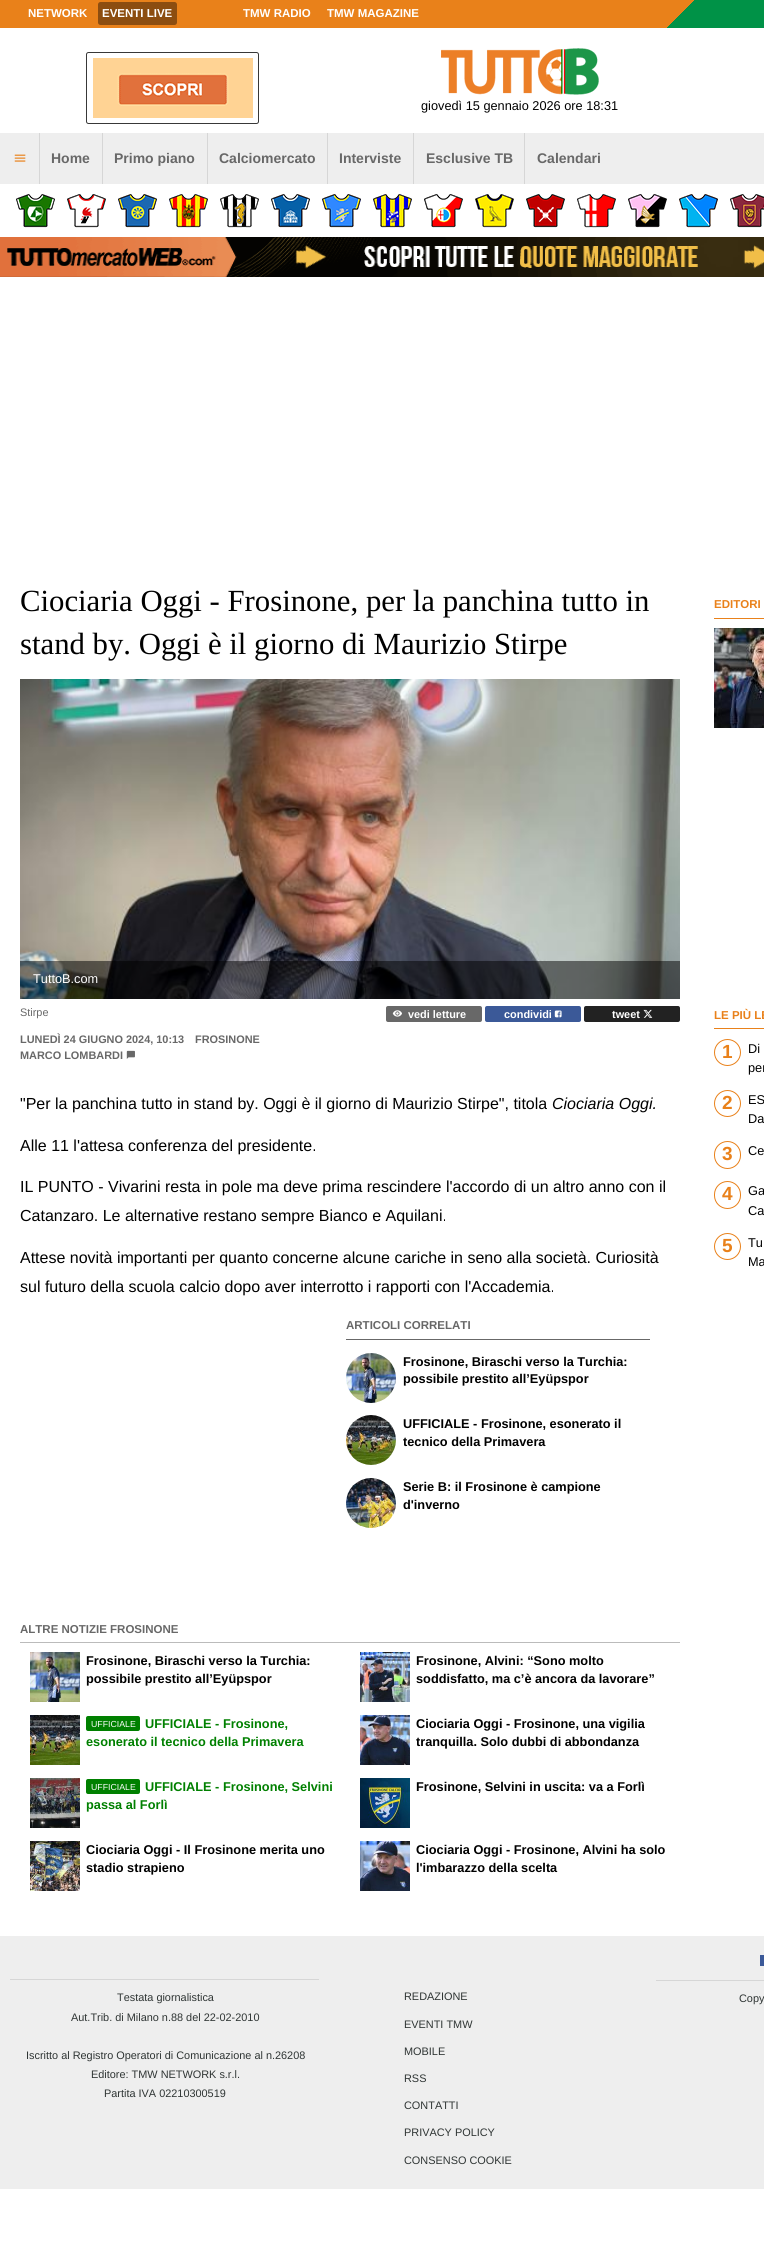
#include <cairo.h>
#include <math.h>
#include <stddef.h>


static void set_color(cairo_t *cr, unsigned color) {
    cairo_set_source_rgb(cr, (color >> 16) / 255.0, (color >> 8 & 255) / 255.0, (color & 255) / 255.0);
}

static void draw_text(cairo_t *cr, double x, double y, const char *s, const char *family, double size, int italic, int bold, unsigned color) {
    cairo_select_font_face(cr, family, italic ? CAIRO_FONT_SLANT_ITALIC : CAIRO_FONT_SLANT_NORMAL,
        bold ? CAIRO_FONT_WEIGHT_BOLD : CAIRO_FONT_WEIGHT_NORMAL);
    cairo_set_font_size(cr, size);
    set_color(cr, color);
    cairo_move_to(cr, x, y);
    cairo_show_text(cr, s);
}

static void fill_rect(cairo_t *cr, double x, double y, double w, double h, unsigned color) {
    set_color(cr, color);
    cairo_rectangle(cr, x, y, w, h);
    cairo_fill(cr);
}

static void rounded_rect(cairo_t *cr, double x, double y, double w, double h, double r) {
    cairo_new_sub_path(cr);
    cairo_arc(cr, x + w - r, y + h - r, r, 0, M_PI / 2);
    cairo_arc(cr, x + r, y + h - r, r, M_PI / 2, M_PI);
    cairo_arc(cr, x + r, y + r, r, M_PI, 1.5 * M_PI);
    cairo_arc(cr, x + w - r, y + r, r, 1.5 * M_PI, 2 * M_PI);
    cairo_close_path(cr);
}

static void draw_image(cairo_t *cr, const char *path, double x, double y, double w, double h) {
    cairo_surface_t *image = cairo_image_surface_create_from_png(path);
    cairo_save(cr);
    cairo_set_source_surface(cr, image, x, y);
    cairo_rectangle(cr, x, y, w, h);
    cairo_fill(cr);
    cairo_restore(cr);
    cairo_surface_destroy(image);
}

int main(void) {
    cairo_surface_t *surface = cairo_image_surface_create(CAIRO_FORMAT_RGB24, 764, 2243);
    cairo_t *cr = cairo_create(surface);
    cairo_font_options_t *options = cairo_font_options_create();
    cairo_font_options_set_hint_metrics(options, CAIRO_HINT_METRICS_OFF);
    cairo_font_options_set_hint_style(options, CAIRO_HINT_STYLE_NONE);
    cairo_set_font_options(cr, options);
    cairo_set_miter_limit(cr, 4);
    cairo_pattern_t *gradient;
    set_color(cr, 0xFFFFFF);
    cairo_paint(cr);
    gradient = cairo_pattern_create_linear(253, -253, 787, 281);
    cairo_pattern_add_color_stop_rgba(gradient, 0.65, 0.914, 0.506, 0.102, 1);
    cairo_pattern_add_color_stop_rgba(gradient, 0.65, 0, 0.573, 0.278, 1);
    cairo_pattern_add_color_stop_rgba(gradient, 1, 0, 0.573, 0.278, 1);
    cairo_set_source(cr, gradient);
    cairo_pattern_destroy(gradient);
    cairo_rectangle(cr, 0, 0, 764, 28);
    cairo_fill(cr);
    draw_text(cr, 28, 17, "NETWORK", "Liberation Sans", 11.5, 0, 1, 0xFFFFFF);
    set_color(cr, 0x8C4D10);
    rounded_rect(cr, 98, 2, 79, 23, 2.5);
    cairo_fill(cr);
    draw_text(cr, 102, 17, "EVENTI LIVE", "Liberation Sans", 11.5, 0, 1, 0xFFFFFF);
    draw_text(cr, 243, 17, "TMW RADIO", "Liberation Sans", 11.5, 0, 1, 0xFFFFFF);
    draw_text(cr, 327, 17, "TMW MAGAZINE", "Liberation Sans", 11.5, 0, 1, 0xFFFFFF);
    rounded_rect(cr, 86.5, 52.5, 172, 71, 2);
    set_color(cr, 0x383838);
    cairo_set_line_width(cr, 1);
    cairo_stroke(cr);
    draw_image(cr, "assets/img1.png", 93, 58, 160, 60);
    draw_image(cr, "assets/img2.png", 441, 48, 158, 47);
    draw_text(cr, 421, 110, "giovedì 15 gennaio 2026 ore 18:31", "Liberation Sans", 12.75, 0, 0, 0x000000);
    fill_rect(cr, 0, 133, 764, 51, 0xEEEEEE);
    draw_image(cr, "assets/img3.png", 14, 154, 12, 8);
    fill_rect(cr, 39, 133, 1, 51, 0xD6D6D6);
    draw_text(cr, 51, 163, "Home", "Liberation Sans", 14, 0, 1, 0x686868);
    fill_rect(cr, 102, 133, 1, 51, 0xD6D6D6);
    draw_text(cr, 114, 163, "Primo piano", "Liberation Sans", 14, 0, 1, 0x686868);
    fill_rect(cr, 207, 133, 1, 51, 0xD6D6D6);
    draw_text(cr, 219, 163, "Calciomercato", "Liberation Sans", 14, 0, 1, 0x686868);
    fill_rect(cr, 327, 133, 1, 51, 0xD6D6D6);
    draw_text(cr, 339, 163, "Interviste", "Liberation Sans", 14, 0, 1, 0x686868);
    fill_rect(cr, 413, 133, 1, 51, 0xD6D6D6);
    draw_text(cr, 426, 163, "Esclusive TB", "Liberation Sans", 14, 0, 1, 0x686868);
    fill_rect(cr, 524, 133, 1, 51, 0xD6D6D6);
    draw_text(cr, 537, 163, "Calendari", "Liberation Sans", 14, 0, 1, 0x686868);
    draw_image(cr, "assets/img4.png", 16, 194, 39, 34);
    draw_image(cr, "assets/img5.png", 67, 194, 39, 34);
    draw_image(cr, "assets/img6.png", 118, 194, 39, 34);
    draw_image(cr, "assets/img7.png", 169, 194, 39, 34);
    draw_image(cr, "assets/img8.png", 220, 194, 39, 34);
    draw_image(cr, "assets/img9.png", 271, 194, 39, 34);
    draw_image(cr, "assets/img10.png", 322, 194, 39, 34);
    draw_image(cr, "assets/img11.png", 373, 194, 39, 34);
    draw_image(cr, "assets/img12.png", 424, 194, 39, 34);
    draw_image(cr, "assets/img13.png", 475, 194, 39, 34);
    draw_image(cr, "assets/img14.png", 526, 194, 39, 34);
    draw_image(cr, "assets/img15.png", 577, 194, 39, 34);
    draw_image(cr, "assets/img16.png", 628, 194, 39, 34);
    draw_image(cr, "assets/img17.png", 679, 194, 39, 34);
    draw_image(cr, "assets/img18.png", 730, 194, 34, 34);
    draw_image(cr, "assets/img19.png", 0, 237, 764, 40);
    draw_text(cr, 20, 611, "Ciociaria Oggi - Frosinone, per la panchina tutto in", "Liberation Serif", 30.75, 0, 0, 0x000000);
    draw_text(cr, 20, 654, "stand by. Oggi è il giorno di Maurizio Stirpe", "Liberation Serif", 30.75, 0, 0, 0x000000);
    draw_image(cr, "assets/img20.png", 20, 679, 660, 320);
    cairo_set_source_rgba(cr, 0, 0, 0, 0.5);
    cairo_rectangle(cr, 20, 961, 660, 38);
    cairo_fill(cr);
    draw_text(cr, 33, 983, "TuttoB.com", "Liberation Sans", 12.75, 0, 0, 0xFFFFFF);
    draw_text(cr, 20, 1016, "Stirpe", "Liberation Sans", 10.9, 0, 0, 0x686868);
    rounded_rect(cr, 386, 1006, 96, 16, 2);
    cairo_fill(cr);
    draw_image(cr, "assets/img21.png", 392, 1010, 10, 7);
    draw_text(cr, 408, 1018, "vedi letture", "Liberation Sans", 10.9, 0, 1, 0xFFFFFF);
    set_color(cr, 0x3B5998);
    rounded_rect(cr, 485, 1006, 96, 16, 2);
    cairo_fill(cr);
    draw_text(cr, 504, 1018, "condividi", "Liberation Sans", 10.9, 0, 1, 0xFFFFFF);
    draw_image(cr, "assets/img22.png", 554, 1010, 8, 8);
    set_color(cr, 0x222222);
    rounded_rect(cr, 584, 1006, 96, 16, 2);
    cairo_fill(cr);
    draw_text(cr, 612, 1018, "tweet", "Liberation Sans", 10.9, 0, 1, 0xFFFFFF);
    draw_image(cr, "assets/img23.png", 643, 1009, 10, 9);
    draw_text(cr, 20, 1043, "LUNEDÌ 24 GIUGNO 2024, 10:13", "Liberation Sans", 10.9, 0, 1, 0x686868);
    draw_text(cr, 195, 1043, "FROSINONE", "Liberation Sans", 10.9, 0, 1, 0x686868);
    draw_text(cr, 20, 1059, "MARCO LOMBARDI", "Liberation Sans", 10.9, 0, 1, 0x686868);
    draw_image(cr, "assets/img24.png", 126, 1050, 9, 9);
    draw_text(cr, 20, 1109, "\"Per la panchina tutto in stand by. Oggi è il giorno di Maurizio Stirpe\", titola", "Liberation Sans", 16, 0, 0, 0x000000);
    draw_text(cr, 552, 1109, "Ciociaria Oggi.", "Liberation Sans", 16, 1, 0, 0x000000);
    draw_text(cr, 20, 1151, "Alle 11 l'attesa conferenza del presidente.", "Liberation Sans", 16, 0, 0, 0x000000);
    draw_text(cr, 20, 1192, "IL PUNTO - Vivarini resta in pole ma deve prima rescindere l'accordo di un altro anno con il", "Liberation Sans", 16, 0, 0, 0x000000);
    draw_text(cr, 20, 1221, "Catanzaro. Le alternative restano sempre Bianco e Aquilani.", "Liberation Sans", 16, 0, 0, 0x000000);
    draw_text(cr, 20, 1263, "Attese novità importanti per quanto concerne alcune cariche in seno alla società. Curiosità", "Liberation Sans", 16, 0, 0, 0x000000);
    draw_text(cr, 20, 1292, "sul futuro della scuola calcio dopo aver interrotto i rapporti con l'Accademia.", "Liberation Sans", 16, 0, 0, 0x000000);
    fill_rect(cr, 346, 1339, 304, 1, 0x686868);
    draw_text(cr, 346, 1329, "ARTICOLI CORRELATI", "Liberation Sans", 11.5, 0, 1, 0x686868);
    draw_image(cr, "assets/img25.png", 346, 1353, 50, 50);
    draw_text(cr, 403, 1366, "Frosinone, Biraschi verso la Turchia:", "Liberation Sans", 12.75, 0, 1, 0x000000);
    draw_text(cr, 403, 1383, "possibile prestito all’Eyüpspor", "Liberation Sans", 12.75, 0, 1, 0x000000);
    draw_image(cr, "assets/img26.png", 346, 1415, 50, 50);
    draw_text(cr, 403, 1428, "UFFICIALE - Frosinone, esonerato il", "Liberation Sans", 12.75, 0, 1, 0x000000);
    draw_text(cr, 403, 1446, "tecnico della Primavera", "Liberation Sans", 12.75, 0, 1, 0x000000);
    draw_image(cr, "assets/img27.png", 346, 1478, 50, 50);
    draw_text(cr, 403, 1491, "Serie B: il Frosinone è campione", "Liberation Sans", 12.75, 0, 1, 0x000000);
    draw_text(cr, 403, 1509, "d'inverno", "Liberation Sans", 12.75, 0, 1, 0x000000);
    fill_rect(cr, 20, 1642, 660, 1, 0xBBBBBB);
    draw_text(cr, 20, 1633, "ALTRE NOTIZIE FROSINONE", "Liberation Sans", 11.5, 0, 1, 0x686868);
    draw_image(cr, "assets/img28.png", 30, 1652, 50, 50);
    draw_text(cr, 86, 1665, "Frosinone, Biraschi verso la Turchia:", "Liberation Sans", 12.75, 0, 1, 0x000000);
    draw_text(cr, 86, 1683, "possibile prestito all’Eyüpspor", "Liberation Sans", 12.75, 0, 1, 0x000000);
    draw_image(cr, "assets/img29.png", 30, 1715, 50, 50);
    set_color(cr, 0x008000);
    rounded_rect(cr, 86, 1716, 54, 15, 2);
    cairo_fill(cr);
    draw_text(cr, 91, 1727, "UFFICIALE", "Liberation Sans", 8.75, 0, 0, 0xFFFFFF);
    draw_text(cr, 145, 1728, "UFFICIALE - Frosinone,", "Liberation Sans", 12.75, 0, 1, 0x008000);
    draw_text(cr, 86, 1746, "esonerato il tecnico della Primavera", "Liberation Sans", 12.75, 0, 1, 0x008000);
    draw_image(cr, "assets/img30.png", 360, 1652, 50, 50);
    draw_text(cr, 416, 1665, "Frosinone, Alvini: “Sono molto", "Liberation Sans", 12.75, 0, 1, 0x000000);
    draw_text(cr, 416, 1683, "soddisfatto, ma c’è ancora da lavorare”", "Liberation Sans", 12.75, 0, 1, 0x000000);
    draw_image(cr, "assets/img31.png", 360, 1715, 50, 50);
    draw_text(cr, 416, 1728, "Ciociaria Oggi - Frosinone, una vigilia", "Liberation Sans", 12.75, 0, 1, 0x000000);
    draw_text(cr, 416, 1746, "tranquilla. Solo dubbi di abbondanza", "Liberation Sans", 12.75, 0, 1, 0x000000);
    draw_image(cr, "assets/img32.png", 30, 1778, 50, 50);
    set_color(cr, 0x008000);
    rounded_rect(cr, 86, 1779, 54, 15, 2);
    cairo_fill(cr);
    draw_text(cr, 91, 1790, "UFFICIALE", "Liberation Sans", 8.75, 0, 0, 0xFFFFFF);
    draw_text(cr, 145, 1791, "UFFICIALE - Frosinone, Selvini", "Liberation Sans", 12.75, 0, 1, 0x008000);
    draw_text(cr, 86, 1809, "passa al Forlì", "Liberation Sans", 12.75, 0, 1, 0x008000);
    draw_image(cr, "assets/img33.png", 30, 1841, 50, 50);
    draw_text(cr, 86, 1854, "Ciociaria Oggi - Il Frosinone merita uno", "Liberation Sans", 12.75, 0, 1, 0x000000);
    draw_text(cr, 86, 1872, "stadio strapieno", "Liberation Sans", 12.75, 0, 1, 0x000000);
    draw_image(cr, "assets/img34.png", 360, 1778, 50, 50);
    draw_text(cr, 416, 1791, "Frosinone, Selvini in uscita: va a Forlì", "Liberation Sans", 12.75, 0, 1, 0x000000);
    draw_image(cr, "assets/img35.png", 360, 1841, 50, 50);
    draw_text(cr, 416, 1854, "Ciociaria Oggi - Frosinone, Alvini ha solo", "Liberation Sans", 12.75, 0, 1, 0x000000);
    draw_text(cr, 416, 1872, "l'imbarazzo della scelta", "Liberation Sans", 12.75, 0, 1, 0x000000);
    fill_rect(cr, 714, 618, 50, 1, 0xE9811A);
    draw_text(cr, 714, 608, "EDITORI", "Liberation Sans", 11.5, 0, 1, 0xE9811A);
    draw_image(cr, "assets/img36.png", 714, 628, 50, 100);
    fill_rect(cr, 714, 1028, 50, 1, 0xE9811A);
    draw_text(cr, 714, 1019, "LE PIÙ LE", "Liberation Sans", 11.5, 0, 1, 0xE9811A);
    cairo_new_path(cr);
    cairo_arc(cr, 727.5, 1052.5, 13, 0, 2 * M_PI);
    cairo_stroke(cr);
    draw_text(cr, 722, 1058, "1", "Liberation Sans", 19, 0, 1, 0xE9811A);
    draw_text(cr, 748, 1053, "Di", "Liberation Sans", 12.75, 0, 0, 0x000000);
    draw_text(cr, 748, 1072, "per", "Liberation Sans", 12.75, 0, 0, 0x000000);
    cairo_new_path(cr);
    cairo_arc(cr, 727.5, 1103.5, 13, 0, 2 * M_PI);
    set_color(cr, 0xE9811A);
    cairo_stroke(cr);
    draw_text(cr, 722, 1109, "2", "Liberation Sans", 19, 0, 1, 0xE9811A);
    draw_text(cr, 748, 1104, "ES", "Liberation Sans", 12.75, 0, 0, 0x000000);
    draw_text(cr, 748, 1123, "Da", "Liberation Sans", 12.75, 0, 0, 0x000000);
    rounded_rect(cr, 714.5, 1141.5, 26, 27, 13);
    set_color(cr, 0xE9811A);
    cairo_stroke(cr);
    draw_text(cr, 722, 1160, "3", "Liberation Sans", 19, 0, 1, 0xE9811A);
    draw_text(cr, 748, 1155, "Ce", "Liberation Sans", 12.75, 0, 0, 0x000000);
    rounded_rect(cr, 714.5, 1181.5, 26, 27, 13);
    set_color(cr, 0xE9811A);
    cairo_stroke(cr);
    draw_text(cr, 722, 1200, "4", "Liberation Sans", 19, 0, 1, 0xE9811A);
    draw_text(cr, 748, 1195, "Ga", "Liberation Sans", 12.75, 0, 0, 0x000000);
    draw_text(cr, 748, 1215, "Ca", "Liberation Sans", 12.75, 0, 0, 0x000000);
    cairo_new_path(cr);
    cairo_arc(cr, 727.5, 1246.5, 13, 0, 2 * M_PI);
    set_color(cr, 0xE9811A);
    cairo_stroke(cr);
    draw_text(cr, 722, 1252, "5", "Liberation Sans", 19, 0, 1, 0xE9811A);
    draw_text(cr, 748, 1247, "Tu", "Liberation Sans", 12.75, 0, 0, 0x000000);
    draw_text(cr, 748, 1266, "Ma", "Liberation Sans", 12.75, 0, 0, 0x000000);
    fill_rect(cr, 0, 1936, 764, 253, 0xEEEEEE);
    fill_rect(cr, 10, 1979, 309, 1, 0xD6D6D6);
    draw_text(cr, 117, 2001, "Testata giornalistica", "Liberation Sans", 10.9, 0, 0, 0x2F3534);
    draw_text(cr, 71, 2021, "Aut.Trib. di Milano n.88 del 22-02-2010", "Liberation Sans", 10.9, 0, 0, 0x2F3534);
    draw_text(cr, 26, 2059, "Iscritto al Registro Operatori di Comunicazione al n.26208", "Liberation Sans", 10.9, 0, 0, 0x2F3534);
    draw_text(cr, 91, 2078, "Editore: TMW NETWORK s.r.l.", "Liberation Sans", 10.9, 0, 0, 0x2F3534);
    draw_text(cr, 104, 2097, "Partita IVA 02210300519", "Liberation Sans", 10.9, 0, 0, 0x2F3534);
    draw_text(cr, 404, 2000, "REDAZIONE", "Liberation Sans", 10.9, 0, 0, 0x2F3534);
    draw_text(cr, 404, 2028, "EVENTI TMW", "Liberation Sans", 10.9, 0, 0, 0x2F3534);
    draw_text(cr, 404, 2055, "MOBILE", "Liberation Sans", 10.9, 0, 0, 0x2F3534);
    draw_text(cr, 404, 2082, "RSS", "Liberation Sans", 10.9, 0, 0, 0x2F3534);
    draw_text(cr, 404, 2109, "CONTATTI", "Liberation Sans", 10.9, 0, 0, 0x2F3534);
    draw_text(cr, 404, 2136, "PRIVACY POLICY", "Liberation Sans", 10.9, 0, 0, 0x2F3534);
    draw_text(cr, 404, 2164, "CONSENSO COOKIE", "Liberation Sans", 10.9, 0, 0, 0x2F3534);
    fill_rect(cr, 760, 1955, 4, 11, 0x3B5998);
    fill_rect(cr, 656, 1980, 108, 1, 0xD6D6D6);
    draw_text(cr, 739, 2002, "Copy", "Liberation Sans", 10.9, 0, 0, 0x2F3534);
    cairo_surface_write_to_png(surface, "output.png");
    cairo_font_options_destroy(options);
    cairo_destroy(cr);
    cairo_surface_destroy(surface);
    return 0;
}
